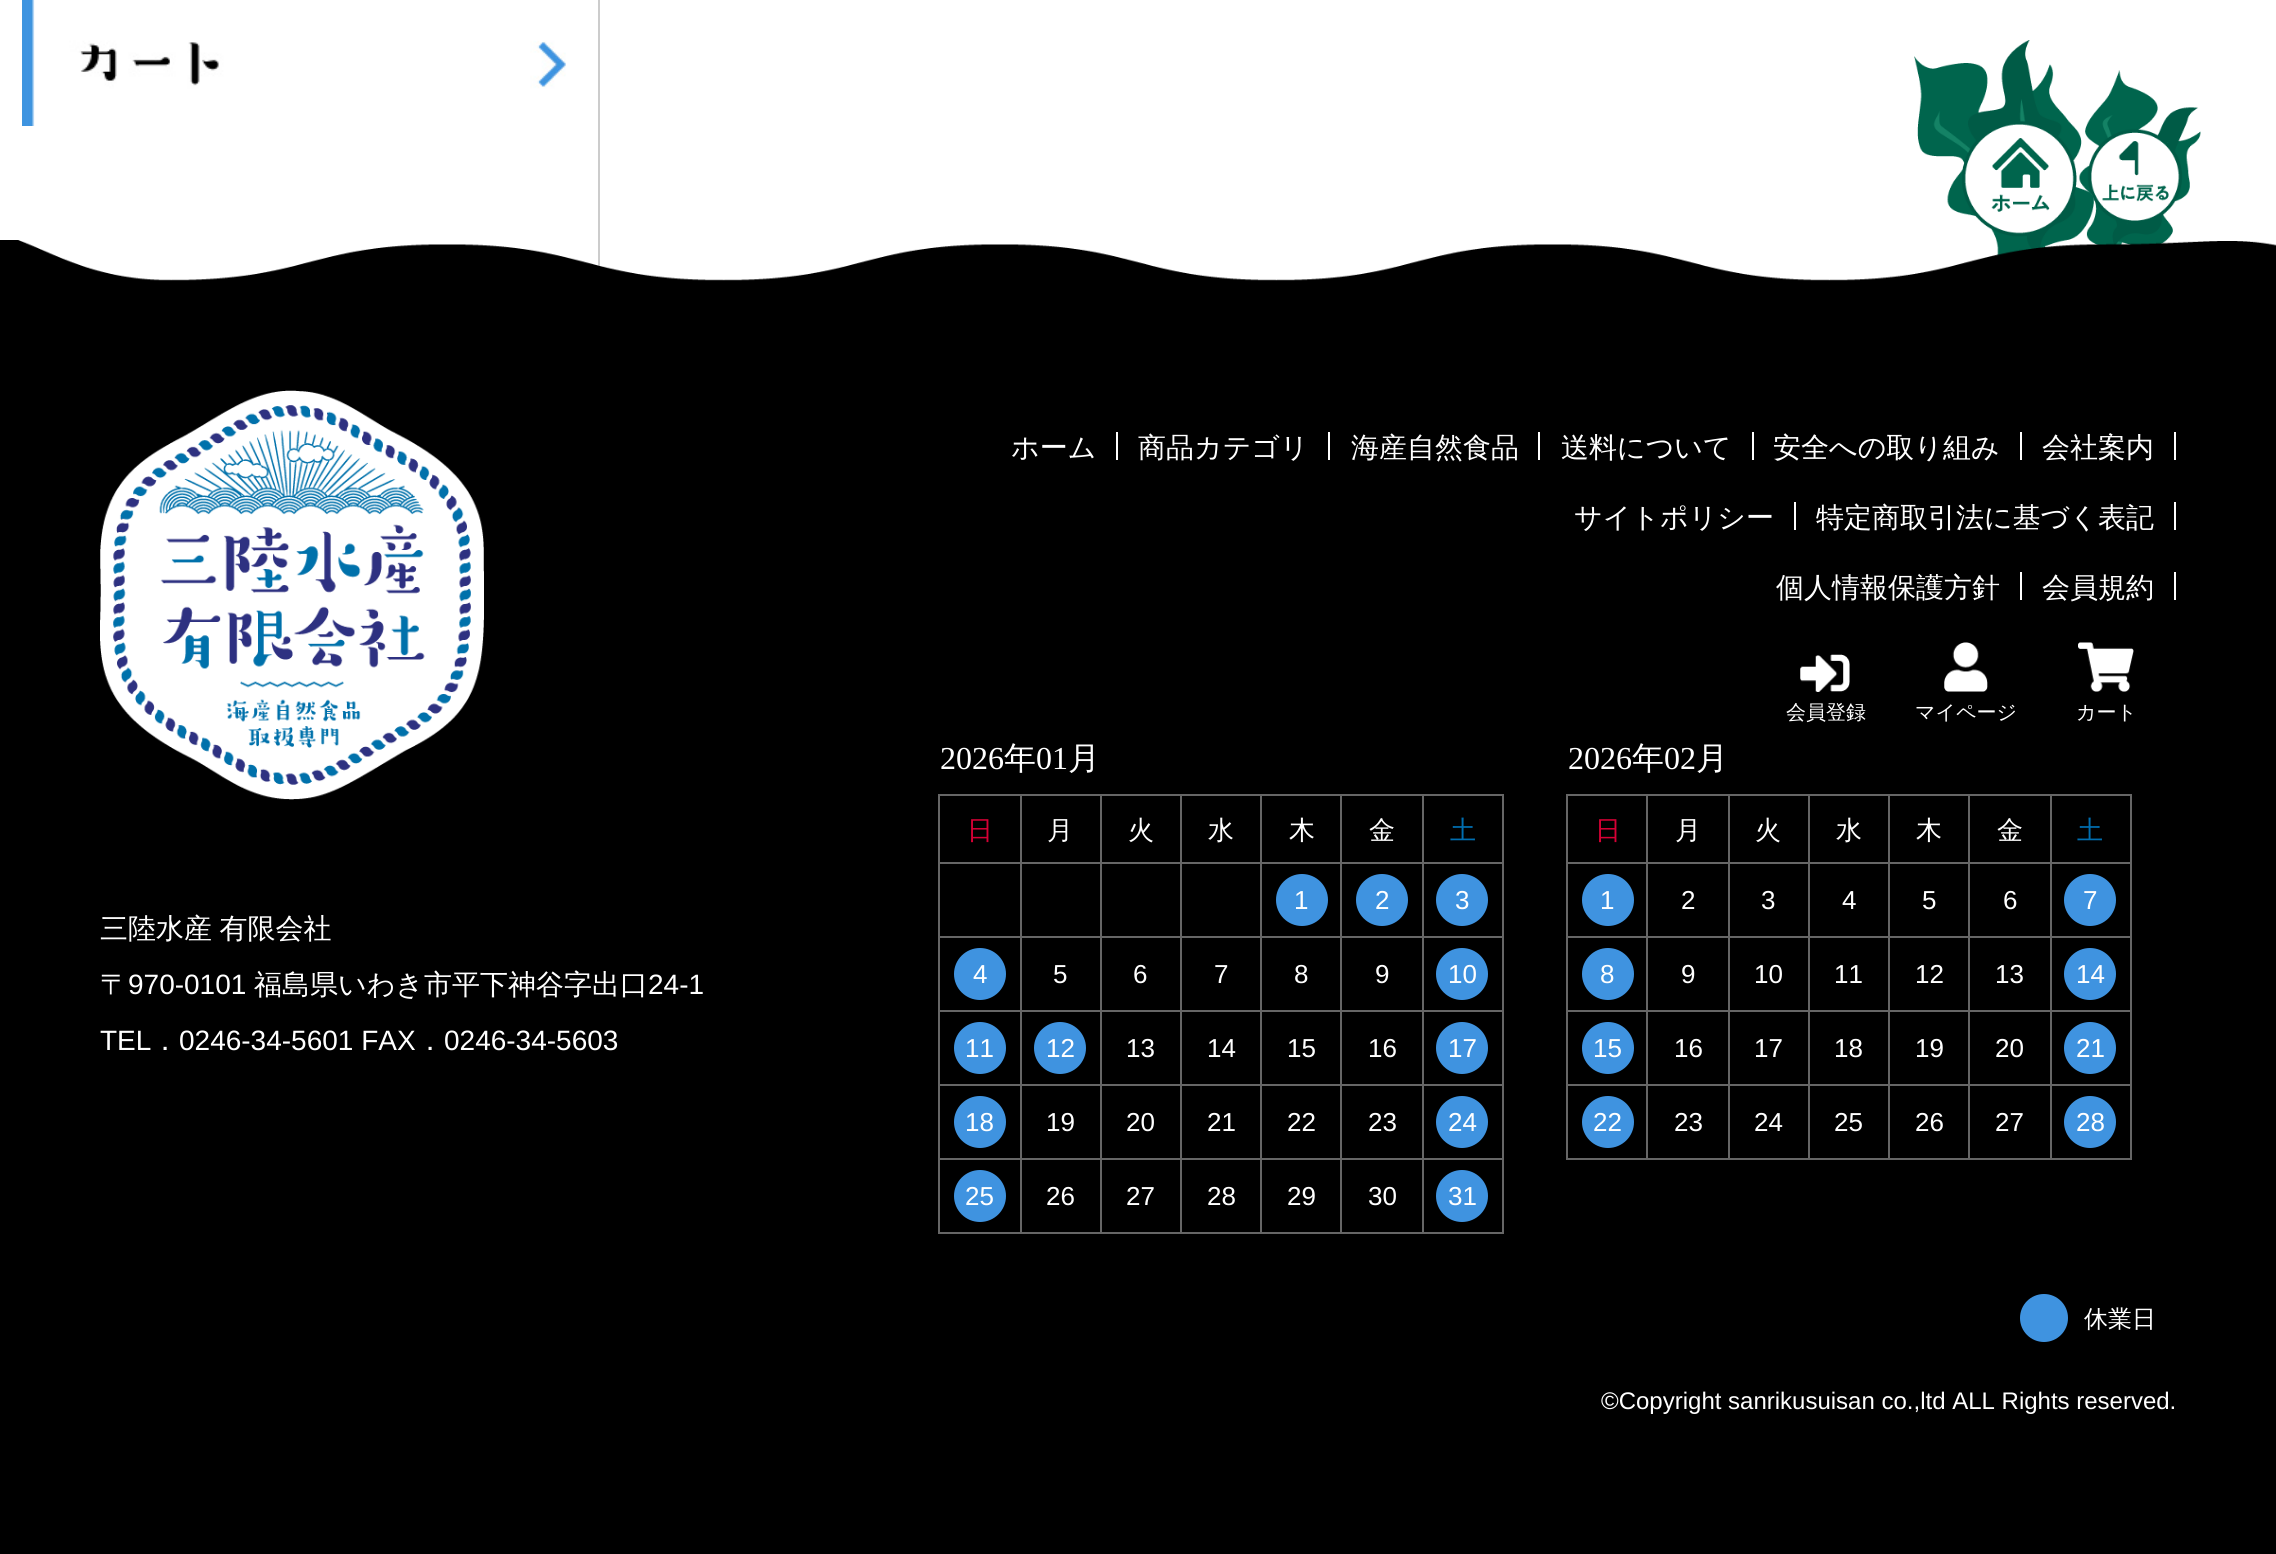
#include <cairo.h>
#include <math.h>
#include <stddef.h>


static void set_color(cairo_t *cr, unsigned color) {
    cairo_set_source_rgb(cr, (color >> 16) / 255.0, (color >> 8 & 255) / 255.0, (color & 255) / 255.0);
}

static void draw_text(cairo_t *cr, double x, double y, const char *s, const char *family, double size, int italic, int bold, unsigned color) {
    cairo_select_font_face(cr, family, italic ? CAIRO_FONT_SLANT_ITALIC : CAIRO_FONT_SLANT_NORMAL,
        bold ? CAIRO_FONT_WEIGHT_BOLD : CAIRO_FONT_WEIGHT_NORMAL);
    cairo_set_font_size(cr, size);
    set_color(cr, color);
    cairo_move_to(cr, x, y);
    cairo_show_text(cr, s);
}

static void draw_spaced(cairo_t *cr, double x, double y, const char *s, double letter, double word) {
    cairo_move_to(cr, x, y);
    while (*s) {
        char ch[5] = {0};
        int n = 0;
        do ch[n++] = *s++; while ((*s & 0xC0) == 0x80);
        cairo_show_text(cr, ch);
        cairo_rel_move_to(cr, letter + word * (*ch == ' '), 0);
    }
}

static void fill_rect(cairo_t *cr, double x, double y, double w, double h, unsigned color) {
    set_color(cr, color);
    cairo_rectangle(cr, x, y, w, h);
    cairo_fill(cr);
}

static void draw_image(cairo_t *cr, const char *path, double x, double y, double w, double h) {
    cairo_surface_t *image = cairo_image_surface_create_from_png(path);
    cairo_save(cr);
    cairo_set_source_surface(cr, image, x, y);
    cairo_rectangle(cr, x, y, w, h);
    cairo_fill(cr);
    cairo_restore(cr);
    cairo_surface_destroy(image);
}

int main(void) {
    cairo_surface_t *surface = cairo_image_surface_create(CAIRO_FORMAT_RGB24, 2276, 1554);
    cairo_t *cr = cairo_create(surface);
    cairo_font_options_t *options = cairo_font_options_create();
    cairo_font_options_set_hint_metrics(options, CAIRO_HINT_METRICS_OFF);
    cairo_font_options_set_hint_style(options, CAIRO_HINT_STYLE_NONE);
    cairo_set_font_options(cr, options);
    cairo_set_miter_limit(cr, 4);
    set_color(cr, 0xFFFFFF);
    cairo_paint(cr);
    fill_rect(cr, 598, 0, 2, 266, 0xCCCCCC);
    draw_image(cr, "assets/img1.png", 22, 0, 544, 126);
    draw_image(cr, "assets/img3.png", 2079, 70, 122, 175);
    draw_image(cr, "assets/img2.png", 1914, 40, 180, 216);
    draw_image(cr, "assets/img4.png", 0, 240, 2276, 50);
    fill_rect(cr, 0, 290, 2276, 1264, 0x000000);
    draw_image(cr, "assets/img5.png", 100, 390, 384, 410);
    cairo_select_font_face(cr, "WenQuanYi Zen Hei Medium", CAIRO_FONT_SLANT_NORMAL, CAIRO_FONT_WEIGHT_NORMAL);
    cairo_set_font_size(cr, 28);
    set_color(cr, 0xFFFFFF);
    draw_spaced(cr, 100, 938, "三陸水産 有限会社", 0, -1);
    draw_text(cr, 100, 994, "〒", "WenQuanYi Zen Hei Medium", 28, 0, 0, 0xFFFFFF);
    draw_text(cr, 128, 994, "970-0101", "Liberation Sans", 28, 0, 0, 0xFFFFFF);
    draw_text(cr, 254, 994, "福島県いわき市平下神谷字出口", "WenQuanYi Zen Hei Medium", 28, 0, 0, 0xFFFFFF);
    draw_text(cr, 648, 994, "24-1", "Liberation Sans", 28, 0, 0, 0xFFFFFF);
    draw_text(cr, 100, 1050, "TEL", "Liberation Sans", 28, 0, 0, 0xFFFFFF);
    draw_text(cr, 151, 1050, "．", "WenQuanYi Zen Hei Medium", 28, 0, 0, 0xFFFFFF);
    draw_text(cr, 179, 1050, "0246-34-5601 FAX", "Liberation Sans", 28, 0, 0, 0xFFFFFF);
    draw_text(cr, 416, 1050, "．", "WenQuanYi Zen Hei Medium", 28, 0, 0, 0xFFFFFF);
    draw_text(cr, 444, 1050, "0246-34-5603", "Liberation Sans", 28, 0, 0, 0xFFFFFF);
    fill_rect(cr, 1116, 432, 2, 28, 0xFFFFFF);
    draw_text(cr, 1011, 457, "ホーム", "WenQuanYi Zen Hei Medium", 28, 0, 0, 0xFFFFFF);
    fill_rect(cr, 1328, 432, 2, 28, 0xFFFFFF);
    draw_text(cr, 1138, 457, "商品カテゴリ", "WenQuanYi Zen Hei Medium", 28, 0, 0, 0xFFFFFF);
    fill_rect(cr, 1538, 432, 2, 28, 0xFFFFFF);
    draw_text(cr, 1351, 457, "海産自然食品", "WenQuanYi Zen Hei Medium", 28, 0, 0, 0xFFFFFF);
    fill_rect(cr, 1752, 432, 2, 28, 0xFFFFFF);
    draw_text(cr, 1561, 457, "送料について", "WenQuanYi Zen Hei Medium", 28, 0, 0, 0xFFFFFF);
    fill_rect(cr, 2020, 432, 2, 28, 0xFFFFFF);
    draw_text(cr, 1773, 457, "安全への取り組み", "WenQuanYi Zen Hei Medium", 28, 0, 0, 0xFFFFFF);
    fill_rect(cr, 2174, 432, 2, 28, 0xFFFFFF);
    draw_text(cr, 2042, 457, "会社案内", "WenQuanYi Zen Hei Medium", 28, 0, 0, 0xFFFFFF);
    fill_rect(cr, 1794, 502, 2, 28, 0xFFFFFF);
    draw_text(cr, 1574, 527, "サイトポリシー", "WenQuanYi Zen Hei Medium", 28, 0, 0, 0xFFFFFF);
    fill_rect(cr, 2174, 502, 2, 28, 0xFFFFFF);
    draw_text(cr, 1816, 527, "特定商取引法に基づく表記", "WenQuanYi Zen Hei Medium", 28, 0, 0, 0xFFFFFF);
    fill_rect(cr, 2020, 572, 2, 28, 0xFFFFFF);
    draw_text(cr, 1776, 597, "個人情報保護方針", "WenQuanYi Zen Hei Medium", 28, 0, 0, 0xFFFFFF);
    fill_rect(cr, 2174, 572, 2, 28, 0xFFFFFF);
    draw_text(cr, 2042, 597, "会員規約", "WenQuanYi Zen Hei Medium", 28, 0, 0, 0xFFFFFF);
    draw_image(cr, "assets/img6.png", 1800, 654, 50, 38);
    draw_text(cr, 1786, 719, "会員登録", "WenQuanYi Zen Hei Medium", 20, 0, 0, 0xFFFFFF);
    draw_image(cr, "assets/img7.png", 1944, 642, 44, 50);
    draw_text(cr, 1915, 719, "マイページ", "WenQuanYi Zen Hei Medium", 20, 0, 0, 0xFFFFFF);
    draw_image(cr, "assets/img8.png", 2078, 642, 56, 50);
    draw_text(cr, 2076, 719, "カート", "WenQuanYi Zen Hei Medium", 20, 0, 0, 0xFFFFFF);
    draw_text(cr, 940, 769, "2026", "Liberation Serif", 32, 0, 0, 0xFFFFFF);
    draw_text(cr, 1004, 769, "年", "WenQuanYi Zen Hei Medium", 32, 0, 0, 0xFFFFFF);
    draw_text(cr, 1036, 769, "01", "Liberation Serif", 32, 0, 0, 0xFFFFFF);
    draw_text(cr, 1068, 769, "月", "WenQuanYi Zen Hei Medium", 32, 0, 0, 0xFFFFFF);
    fill_rect(cr, 1422, 794, 82, 2, 0x666666);
    fill_rect(cr, 1422, 862, 82, 2, 0x666666);
    fill_rect(cr, 1422, 936, 82, 2, 0x666666);
    fill_rect(cr, 1422, 1010, 82, 2, 0x666666);
    fill_rect(cr, 1422, 1084, 82, 2, 0x666666);
    fill_rect(cr, 1422, 1158, 82, 2, 0x666666);
    fill_rect(cr, 1502, 1158, 2, 76, 0x666666);
    fill_rect(cr, 1422, 1232, 82, 2, 0x666666);
    fill_rect(cr, 1422, 1158, 2, 76, 0x666666);
    fill_rect(cr, 1340, 1158, 84, 2, 0x666666);
    fill_rect(cr, 1422, 1084, 2, 76, 0x666666);
    fill_rect(cr, 1340, 1084, 84, 2, 0x666666);
    fill_rect(cr, 1422, 1010, 2, 76, 0x666666);
    fill_rect(cr, 1340, 1010, 84, 2, 0x666666);
    fill_rect(cr, 1422, 936, 2, 76, 0x666666);
    fill_rect(cr, 1340, 936, 84, 2, 0x666666);
    fill_rect(cr, 1422, 862, 2, 76, 0x666666);
    fill_rect(cr, 1340, 862, 84, 2, 0x666666);
    fill_rect(cr, 1422, 794, 2, 70, 0x666666);
    fill_rect(cr, 1340, 794, 84, 2, 0x666666);
    fill_rect(cr, 1340, 1232, 84, 2, 0x666666);
    fill_rect(cr, 1340, 1158, 2, 76, 0x666666);
    fill_rect(cr, 1260, 1158, 82, 2, 0x666666);
    fill_rect(cr, 1340, 1084, 2, 76, 0x666666);
    fill_rect(cr, 1260, 1084, 82, 2, 0x666666);
    fill_rect(cr, 1340, 1010, 2, 76, 0x666666);
    fill_rect(cr, 1260, 1010, 82, 2, 0x666666);
    fill_rect(cr, 1340, 936, 2, 76, 0x666666);
    fill_rect(cr, 1260, 936, 82, 2, 0x666666);
    fill_rect(cr, 1340, 862, 2, 76, 0x666666);
    fill_rect(cr, 1260, 862, 82, 2, 0x666666);
    fill_rect(cr, 1340, 794, 2, 70, 0x666666);
    fill_rect(cr, 1260, 794, 82, 2, 0x666666);
    fill_rect(cr, 1260, 1232, 82, 2, 0x666666);
    fill_rect(cr, 1260, 1158, 2, 76, 0x666666);
    fill_rect(cr, 1180, 1158, 82, 2, 0x666666);
    fill_rect(cr, 1260, 1084, 2, 76, 0x666666);
    fill_rect(cr, 1180, 1084, 82, 2, 0x666666);
    fill_rect(cr, 1260, 1010, 2, 76, 0x666666);
    fill_rect(cr, 1180, 1010, 82, 2, 0x666666);
    fill_rect(cr, 1260, 936, 2, 76, 0x666666);
    fill_rect(cr, 1180, 936, 82, 2, 0x666666);
    fill_rect(cr, 1260, 862, 2, 76, 0x666666);
    fill_rect(cr, 1180, 862, 82, 2, 0x666666);
    fill_rect(cr, 1260, 794, 2, 70, 0x666666);
    fill_rect(cr, 1180, 794, 82, 2, 0x666666);
    fill_rect(cr, 1180, 1232, 82, 2, 0x666666);
    fill_rect(cr, 1180, 1158, 2, 76, 0x666666);
    fill_rect(cr, 1100, 1158, 82, 2, 0x666666);
    fill_rect(cr, 1180, 1084, 2, 76, 0x666666);
    fill_rect(cr, 1100, 1084, 82, 2, 0x666666);
    fill_rect(cr, 1180, 1010, 2, 76, 0x666666);
    fill_rect(cr, 1100, 1010, 82, 2, 0x666666);
    fill_rect(cr, 1180, 936, 2, 76, 0x666666);
    fill_rect(cr, 1100, 936, 82, 2, 0x666666);
    fill_rect(cr, 1180, 862, 2, 76, 0x666666);
    fill_rect(cr, 1100, 862, 82, 2, 0x666666);
    fill_rect(cr, 1180, 794, 2, 70, 0x666666);
    fill_rect(cr, 1100, 794, 82, 2, 0x666666);
    fill_rect(cr, 1100, 1232, 82, 2, 0x666666);
    fill_rect(cr, 1100, 1158, 2, 76, 0x666666);
    fill_rect(cr, 1020, 1158, 82, 2, 0x666666);
    fill_rect(cr, 1100, 1084, 2, 76, 0x666666);
    fill_rect(cr, 1020, 1084, 82, 2, 0x666666);
    fill_rect(cr, 1100, 1010, 2, 76, 0x666666);
    fill_rect(cr, 1020, 1010, 82, 2, 0x666666);
    fill_rect(cr, 1100, 936, 2, 76, 0x666666);
    fill_rect(cr, 1020, 936, 82, 2, 0x666666);
    fill_rect(cr, 1100, 862, 2, 76, 0x666666);
    fill_rect(cr, 1020, 862, 82, 2, 0x666666);
    fill_rect(cr, 1100, 794, 2, 70, 0x666666);
    fill_rect(cr, 1020, 794, 82, 2, 0x666666);
    fill_rect(cr, 1020, 1232, 82, 2, 0x666666);
    fill_rect(cr, 1020, 1158, 2, 76, 0x666666);
    fill_rect(cr, 938, 1158, 84, 2, 0x666666);
    fill_rect(cr, 1020, 1084, 2, 76, 0x666666);
    fill_rect(cr, 938, 1084, 84, 2, 0x666666);
    fill_rect(cr, 1020, 1010, 2, 76, 0x666666);
    fill_rect(cr, 938, 1010, 84, 2, 0x666666);
    fill_rect(cr, 1020, 936, 2, 76, 0x666666);
    fill_rect(cr, 938, 936, 84, 2, 0x666666);
    fill_rect(cr, 1020, 862, 2, 76, 0x666666);
    fill_rect(cr, 938, 862, 84, 2, 0x666666);
    fill_rect(cr, 1020, 794, 2, 70, 0x666666);
    fill_rect(cr, 938, 794, 84, 2, 0x666666);
    fill_rect(cr, 938, 1232, 84, 2, 0x666666);
    fill_rect(cr, 938, 1158, 2, 76, 0x666666);
    fill_rect(cr, 938, 1084, 2, 76, 0x666666);
    fill_rect(cr, 938, 1010, 2, 76, 0x666666);
    fill_rect(cr, 938, 936, 2, 76, 0x666666);
    fill_rect(cr, 938, 862, 2, 76, 0x666666);
    fill_rect(cr, 938, 794, 2, 70, 0x666666);
    draw_text(cr, 967, 839, "日", "WenQuanYi Zen Hei Medium", 26, 0, 0, 0xD70035);
    draw_text(cr, 1047, 839, "月", "WenQuanYi Zen Hei Medium", 26, 0, 0, 0xFFFFFF);
    draw_text(cr, 1128, 839, "火", "WenQuanYi Zen Hei Medium", 26, 0, 0, 0xFFFFFF);
    draw_text(cr, 1208, 839, "水", "WenQuanYi Zen Hei Medium", 26, 0, 0, 0xFFFFFF);
    draw_text(cr, 1289, 839, "木", "WenQuanYi Zen Hei Medium", 26, 0, 0, 0xFFFFFF);
    draw_text(cr, 1369, 839, "金", "WenQuanYi Zen Hei Medium", 26, 0, 0, 0xFFFFFF);
    fill_rect(cr, 1502, 1084, 2, 76, 0x666666);
    fill_rect(cr, 1502, 1010, 2, 76, 0x666666);
    fill_rect(cr, 1502, 936, 2, 76, 0x666666);
    fill_rect(cr, 1502, 862, 2, 76, 0x666666);
    fill_rect(cr, 1502, 794, 2, 70, 0x666666);
    draw_text(cr, 1450, 839, "土", "WenQuanYi Zen Hei Medium", 26, 0, 0, 0x006EB0);
    set_color(cr, 0x3F93E0);
    cairo_new_path(cr);
    cairo_arc(cr, 1302, 900, 26, 0, 2 * M_PI);
    cairo_fill(cr);
    draw_text(cr, 1294, 909, "1", "Liberation Sans", 26, 0, 0, 0xFFFFFF);
    set_color(cr, 0x3F93E0);
    cairo_new_path(cr);
    cairo_arc(cr, 1382, 900, 26, 0, 2 * M_PI);
    cairo_fill(cr);
    draw_text(cr, 1375, 909, "2", "Liberation Sans", 26, 0, 0, 0xFFFFFF);
    set_color(cr, 0x3F93E0);
    cairo_new_path(cr);
    cairo_arc(cr, 1462, 900, 26, 0, 2 * M_PI);
    cairo_fill(cr);
    draw_text(cr, 1455, 909, "3", "Liberation Sans", 26, 0, 0, 0xFFFFFF);
    set_color(cr, 0x3F93E0);
    cairo_new_path(cr);
    cairo_arc(cr, 980, 974, 26, 0, 2 * M_PI);
    cairo_fill(cr);
    draw_text(cr, 973, 983, "4", "Liberation Sans", 26, 0, 0, 0xFFFFFF);
    draw_text(cr, 1053, 983, "5", "Liberation Sans", 26, 0, 0, 0xFFFFFF);
    draw_text(cr, 1133, 983, "6", "Liberation Sans", 26, 0, 0, 0xFFFFFF);
    draw_text(cr, 1214, 983, "7", "Liberation Sans", 26, 0, 0, 0xFFFFFF);
    draw_text(cr, 1294, 983, "8", "Liberation Sans", 26, 0, 0, 0xFFFFFF);
    draw_text(cr, 1375, 983, "9", "Liberation Sans", 26, 0, 0, 0xFFFFFF);
    set_color(cr, 0x3F93E0);
    cairo_new_path(cr);
    cairo_arc(cr, 1462, 974, 26, 0, 2 * M_PI);
    cairo_fill(cr);
    draw_text(cr, 1448, 983, "10", "Liberation Sans", 26, 0, 0, 0xFFFFFF);
    set_color(cr, 0x3F93E0);
    cairo_new_path(cr);
    cairo_arc(cr, 980, 1048, 26, 0, 2 * M_PI);
    cairo_fill(cr);
    draw_text(cr, 965, 1057, "11", "Liberation Sans", 26, 0, 0, 0xFFFFFF);
    set_color(cr, 0x3F93E0);
    cairo_new_path(cr);
    cairo_arc(cr, 1060, 1048, 26, 0, 2 * M_PI);
    cairo_fill(cr);
    draw_text(cr, 1046, 1057, "12", "Liberation Sans", 26, 0, 0, 0xFFFFFF);
    draw_text(cr, 1126, 1057, "13", "Liberation Sans", 26, 0, 0, 0xFFFFFF);
    draw_text(cr, 1207, 1057, "14", "Liberation Sans", 26, 0, 0, 0xFFFFFF);
    draw_text(cr, 1287, 1057, "15", "Liberation Sans", 26, 0, 0, 0xFFFFFF);
    draw_text(cr, 1368, 1057, "16", "Liberation Sans", 26, 0, 0, 0xFFFFFF);
    set_color(cr, 0x3F93E0);
    cairo_new_path(cr);
    cairo_arc(cr, 1462, 1048, 26, 0, 2 * M_PI);
    cairo_fill(cr);
    draw_text(cr, 1448, 1057, "17", "Liberation Sans", 26, 0, 0, 0xFFFFFF);
    set_color(cr, 0x3F93E0);
    cairo_new_path(cr);
    cairo_arc(cr, 980, 1122, 26, 0, 2 * M_PI);
    cairo_fill(cr);
    draw_text(cr, 965, 1131, "18", "Liberation Sans", 26, 0, 0, 0xFFFFFF);
    draw_text(cr, 1046, 1131, "19", "Liberation Sans", 26, 0, 0, 0xFFFFFF);
    draw_text(cr, 1126, 1131, "20", "Liberation Sans", 26, 0, 0, 0xFFFFFF);
    draw_text(cr, 1207, 1131, "21", "Liberation Sans", 26, 0, 0, 0xFFFFFF);
    draw_text(cr, 1287, 1131, "22", "Liberation Sans", 26, 0, 0, 0xFFFFFF);
    draw_text(cr, 1368, 1131, "23", "Liberation Sans", 26, 0, 0, 0xFFFFFF);
    set_color(cr, 0x3F93E0);
    cairo_new_path(cr);
    cairo_arc(cr, 1462, 1122, 26, 0, 2 * M_PI);
    cairo_fill(cr);
    draw_text(cr, 1448, 1131, "24", "Liberation Sans", 26, 0, 0, 0xFFFFFF);
    set_color(cr, 0x3F93E0);
    cairo_new_path(cr);
    cairo_arc(cr, 980, 1196, 26, 0, 2 * M_PI);
    cairo_fill(cr);
    draw_text(cr, 965, 1205, "25", "Liberation Sans", 26, 0, 0, 0xFFFFFF);
    draw_text(cr, 1046, 1205, "26", "Liberation Sans", 26, 0, 0, 0xFFFFFF);
    draw_text(cr, 1126, 1205, "27", "Liberation Sans", 26, 0, 0, 0xFFFFFF);
    draw_text(cr, 1207, 1205, "28", "Liberation Sans", 26, 0, 0, 0xFFFFFF);
    draw_text(cr, 1287, 1205, "29", "Liberation Sans", 26, 0, 0, 0xFFFFFF);
    draw_text(cr, 1368, 1205, "30", "Liberation Sans", 26, 0, 0, 0xFFFFFF);
    set_color(cr, 0x3F93E0);
    cairo_new_path(cr);
    cairo_arc(cr, 1462, 1196, 26, 0, 2 * M_PI);
    cairo_fill(cr);
    draw_text(cr, 1448, 1205, "31", "Liberation Sans", 26, 0, 0, 0xFFFFFF);
    draw_text(cr, 1568, 769, "2026", "Liberation Serif", 32, 0, 0, 0xFFFFFF);
    draw_text(cr, 1632, 769, "年", "WenQuanYi Zen Hei Medium", 32, 0, 0, 0xFFFFFF);
    draw_text(cr, 1664, 769, "02", "Liberation Serif", 32, 0, 0, 0xFFFFFF);
    draw_text(cr, 1696, 769, "月", "WenQuanYi Zen Hei Medium", 32, 0, 0, 0xFFFFFF);
    fill_rect(cr, 2050, 794, 82, 2, 0x666666);
    fill_rect(cr, 2050, 862, 82, 2, 0x666666);
    fill_rect(cr, 2050, 936, 82, 2, 0x666666);
    fill_rect(cr, 2050, 1010, 82, 2, 0x666666);
    fill_rect(cr, 2050, 1084, 82, 2, 0x666666);
    fill_rect(cr, 2130, 1084, 2, 76, 0x666666);
    fill_rect(cr, 2050, 1158, 82, 2, 0x666666);
    fill_rect(cr, 2050, 1084, 2, 76, 0x666666);
    fill_rect(cr, 1968, 1084, 84, 2, 0x666666);
    fill_rect(cr, 2050, 1010, 2, 76, 0x666666);
    fill_rect(cr, 1968, 1010, 84, 2, 0x666666);
    fill_rect(cr, 2050, 936, 2, 76, 0x666666);
    fill_rect(cr, 1968, 936, 84, 2, 0x666666);
    fill_rect(cr, 2050, 862, 2, 76, 0x666666);
    fill_rect(cr, 1968, 862, 84, 2, 0x666666);
    fill_rect(cr, 2050, 794, 2, 70, 0x666666);
    fill_rect(cr, 1968, 794, 84, 2, 0x666666);
    fill_rect(cr, 1968, 1158, 84, 2, 0x666666);
    fill_rect(cr, 1968, 1084, 2, 76, 0x666666);
    fill_rect(cr, 1888, 1084, 82, 2, 0x666666);
    fill_rect(cr, 1968, 1010, 2, 76, 0x666666);
    fill_rect(cr, 1888, 1010, 82, 2, 0x666666);
    fill_rect(cr, 1968, 936, 2, 76, 0x666666);
    fill_rect(cr, 1888, 936, 82, 2, 0x666666);
    fill_rect(cr, 1968, 862, 2, 76, 0x666666);
    fill_rect(cr, 1888, 862, 82, 2, 0x666666);
    fill_rect(cr, 1968, 794, 2, 70, 0x666666);
    fill_rect(cr, 1888, 794, 82, 2, 0x666666);
    fill_rect(cr, 1888, 1158, 82, 2, 0x666666);
    fill_rect(cr, 1888, 1084, 2, 76, 0x666666);
    fill_rect(cr, 1808, 1084, 82, 2, 0x666666);
    fill_rect(cr, 1888, 1010, 2, 76, 0x666666);
    fill_rect(cr, 1808, 1010, 82, 2, 0x666666);
    fill_rect(cr, 1888, 936, 2, 76, 0x666666);
    fill_rect(cr, 1808, 936, 82, 2, 0x666666);
    fill_rect(cr, 1888, 862, 2, 76, 0x666666);
    fill_rect(cr, 1808, 862, 82, 2, 0x666666);
    fill_rect(cr, 1888, 794, 2, 70, 0x666666);
    fill_rect(cr, 1808, 794, 82, 2, 0x666666);
    fill_rect(cr, 1808, 1158, 82, 2, 0x666666);
    fill_rect(cr, 1808, 1084, 2, 76, 0x666666);
    fill_rect(cr, 1728, 1084, 82, 2, 0x666666);
    fill_rect(cr, 1808, 1010, 2, 76, 0x666666);
    fill_rect(cr, 1728, 1010, 82, 2, 0x666666);
    fill_rect(cr, 1808, 936, 2, 76, 0x666666);
    fill_rect(cr, 1728, 936, 82, 2, 0x666666);
    fill_rect(cr, 1808, 862, 2, 76, 0x666666);
    fill_rect(cr, 1728, 862, 82, 2, 0x666666);
    fill_rect(cr, 1808, 794, 2, 70, 0x666666);
    fill_rect(cr, 1728, 794, 82, 2, 0x666666);
    fill_rect(cr, 1728, 1158, 82, 2, 0x666666);
    fill_rect(cr, 1728, 1084, 2, 76, 0x666666);
    fill_rect(cr, 1646, 1084, 84, 2, 0x666666);
    fill_rect(cr, 1728, 1010, 2, 76, 0x666666);
    fill_rect(cr, 1646, 1010, 84, 2, 0x666666);
    fill_rect(cr, 1728, 936, 2, 76, 0x666666);
    fill_rect(cr, 1646, 936, 84, 2, 0x666666);
    fill_rect(cr, 1728, 862, 2, 76, 0x666666);
    fill_rect(cr, 1646, 862, 84, 2, 0x666666);
    fill_rect(cr, 1728, 794, 2, 70, 0x666666);
    fill_rect(cr, 1646, 794, 84, 2, 0x666666);
    fill_rect(cr, 1646, 1158, 84, 2, 0x666666);
    fill_rect(cr, 1646, 1084, 2, 76, 0x666666);
    fill_rect(cr, 1566, 1084, 82, 2, 0x666666);
    fill_rect(cr, 1646, 1010, 2, 76, 0x666666);
    fill_rect(cr, 1566, 1010, 82, 2, 0x666666);
    fill_rect(cr, 1646, 936, 2, 76, 0x666666);
    fill_rect(cr, 1566, 936, 82, 2, 0x666666);
    fill_rect(cr, 1646, 862, 2, 76, 0x666666);
    fill_rect(cr, 1566, 862, 82, 2, 0x666666);
    fill_rect(cr, 1646, 794, 2, 70, 0x666666);
    fill_rect(cr, 1566, 794, 82, 2, 0x666666);
    fill_rect(cr, 1566, 1158, 82, 2, 0x666666);
    fill_rect(cr, 1566, 1084, 2, 76, 0x666666);
    fill_rect(cr, 1566, 1010, 2, 76, 0x666666);
    fill_rect(cr, 1566, 936, 2, 76, 0x666666);
    fill_rect(cr, 1566, 862, 2, 76, 0x666666);
    fill_rect(cr, 1566, 794, 2, 70, 0x666666);
    draw_text(cr, 1595, 839, "日", "WenQuanYi Zen Hei Medium", 26, 0, 0, 0xD70035);
    draw_text(cr, 1675, 839, "月", "WenQuanYi Zen Hei Medium", 26, 0, 0, 0xFFFFFF);
    draw_text(cr, 1755, 839, "火", "WenQuanYi Zen Hei Medium", 26, 0, 0, 0xFFFFFF);
    draw_text(cr, 1836, 839, "水", "WenQuanYi Zen Hei Medium", 26, 0, 0, 0xFFFFFF);
    draw_text(cr, 1916, 839, "木", "WenQuanYi Zen Hei Medium", 26, 0, 0, 0xFFFFFF);
    draw_text(cr, 1997, 839, "金", "WenQuanYi Zen Hei Medium", 26, 0, 0, 0xFFFFFF);
    fill_rect(cr, 2130, 1010, 2, 76, 0x666666);
    fill_rect(cr, 2130, 936, 2, 76, 0x666666);
    fill_rect(cr, 2130, 862, 2, 76, 0x666666);
    fill_rect(cr, 2130, 794, 2, 70, 0x666666);
    draw_text(cr, 2077, 839, "土", "WenQuanYi Zen Hei Medium", 26, 0, 0, 0x006EB0);
    set_color(cr, 0x3F93E0);
    cairo_new_path(cr);
    cairo_arc(cr, 1608, 900, 26, 0, 2 * M_PI);
    cairo_fill(cr);
    draw_text(cr, 1600, 909, "1", "Liberation Sans", 26, 0, 0, 0xFFFFFF);
    draw_text(cr, 1681, 909, "2", "Liberation Sans", 26, 0, 0, 0xFFFFFF);
    draw_text(cr, 1761, 909, "3", "Liberation Sans", 26, 0, 0, 0xFFFFFF);
    draw_text(cr, 1842, 909, "4", "Liberation Sans", 26, 0, 0, 0xFFFFFF);
    draw_text(cr, 1922, 909, "5", "Liberation Sans", 26, 0, 0, 0xFFFFFF);
    draw_text(cr, 2003, 909, "6", "Liberation Sans", 26, 0, 0, 0xFFFFFF);
    set_color(cr, 0x3F93E0);
    cairo_new_path(cr);
    cairo_arc(cr, 2090, 900, 26, 0, 2 * M_PI);
    cairo_fill(cr);
    draw_text(cr, 2083, 909, "7", "Liberation Sans", 26, 0, 0, 0xFFFFFF);
    set_color(cr, 0x3F93E0);
    cairo_new_path(cr);
    cairo_arc(cr, 1608, 974, 26, 0, 2 * M_PI);
    cairo_fill(cr);
    draw_text(cr, 1600, 983, "8", "Liberation Sans", 26, 0, 0, 0xFFFFFF);
    draw_text(cr, 1681, 983, "9", "Liberation Sans", 26, 0, 0, 0xFFFFFF);
    draw_text(cr, 1754, 983, "10", "Liberation Sans", 26, 0, 0, 0xFFFFFF);
    draw_text(cr, 1834, 983, "11", "Liberation Sans", 26, 0, 0, 0xFFFFFF);
    draw_text(cr, 1915, 983, "12", "Liberation Sans", 26, 0, 0, 0xFFFFFF);
    draw_text(cr, 1995, 983, "13", "Liberation Sans", 26, 0, 0, 0xFFFFFF);
    set_color(cr, 0x3F93E0);
    cairo_new_path(cr);
    cairo_arc(cr, 2090, 974, 26, 0, 2 * M_PI);
    cairo_fill(cr);
    draw_text(cr, 2076, 983, "14", "Liberation Sans", 26, 0, 0, 0xFFFFFF);
    set_color(cr, 0x3F93E0);
    cairo_new_path(cr);
    cairo_arc(cr, 1608, 1048, 26, 0, 2 * M_PI);
    cairo_fill(cr);
    draw_text(cr, 1593, 1057, "15", "Liberation Sans", 26, 0, 0, 0xFFFFFF);
    draw_text(cr, 1674, 1057, "16", "Liberation Sans", 26, 0, 0, 0xFFFFFF);
    draw_text(cr, 1754, 1057, "17", "Liberation Sans", 26, 0, 0, 0xFFFFFF);
    draw_text(cr, 1834, 1057, "18", "Liberation Sans", 26, 0, 0, 0xFFFFFF);
    draw_text(cr, 1915, 1057, "19", "Liberation Sans", 26, 0, 0, 0xFFFFFF);
    draw_text(cr, 1995, 1057, "20", "Liberation Sans", 26, 0, 0, 0xFFFFFF);
    set_color(cr, 0x3F93E0);
    cairo_new_path(cr);
    cairo_arc(cr, 2090, 1048, 26, 0, 2 * M_PI);
    cairo_fill(cr);
    draw_text(cr, 2076, 1057, "21", "Liberation Sans", 26, 0, 0, 0xFFFFFF);
    set_color(cr, 0x3F93E0);
    cairo_new_path(cr);
    cairo_arc(cr, 1608, 1122, 26, 0, 2 * M_PI);
    cairo_fill(cr);
    draw_text(cr, 1593, 1131, "22", "Liberation Sans", 26, 0, 0, 0xFFFFFF);
    draw_text(cr, 1674, 1131, "23", "Liberation Sans", 26, 0, 0, 0xFFFFFF);
    draw_text(cr, 1754, 1131, "24", "Liberation Sans", 26, 0, 0, 0xFFFFFF);
    draw_text(cr, 1834, 1131, "25", "Liberation Sans", 26, 0, 0, 0xFFFFFF);
    draw_text(cr, 1915, 1131, "26", "Liberation Sans", 26, 0, 0, 0xFFFFFF);
    draw_text(cr, 1995, 1131, "27", "Liberation Sans", 26, 0, 0, 0xFFFFFF);
    set_color(cr, 0x3F93E0);
    cairo_new_path(cr);
    cairo_arc(cr, 2090, 1122, 26, 0, 2 * M_PI);
    cairo_fill(cr);
    draw_text(cr, 2076, 1131, "28", "Liberation Sans", 26, 0, 0, 0xFFFFFF);
    set_color(cr, 0x3F93E0);
    cairo_new_path(cr);
    cairo_arc(cr, 2044, 1318, 24, 0, 2 * M_PI);
    cairo_fill(cr);
    draw_text(cr, 2084, 1327, "休業日", "WenQuanYi Zen Hei Medium", 24, 0, 0, 0xFFFFFF);
    draw_text(cr, 1601, 1409, "©Copyright sanrikusuisan co.,ltd ALL Rights reserved.", "Liberation Sans", 24, 0, 0, 0xFFFFFF);
    cairo_surface_write_to_png(surface, "output.png");
    cairo_font_options_destroy(options);
    cairo_destroy(cr);
    cairo_surface_destroy(surface);
    return 0;
}
